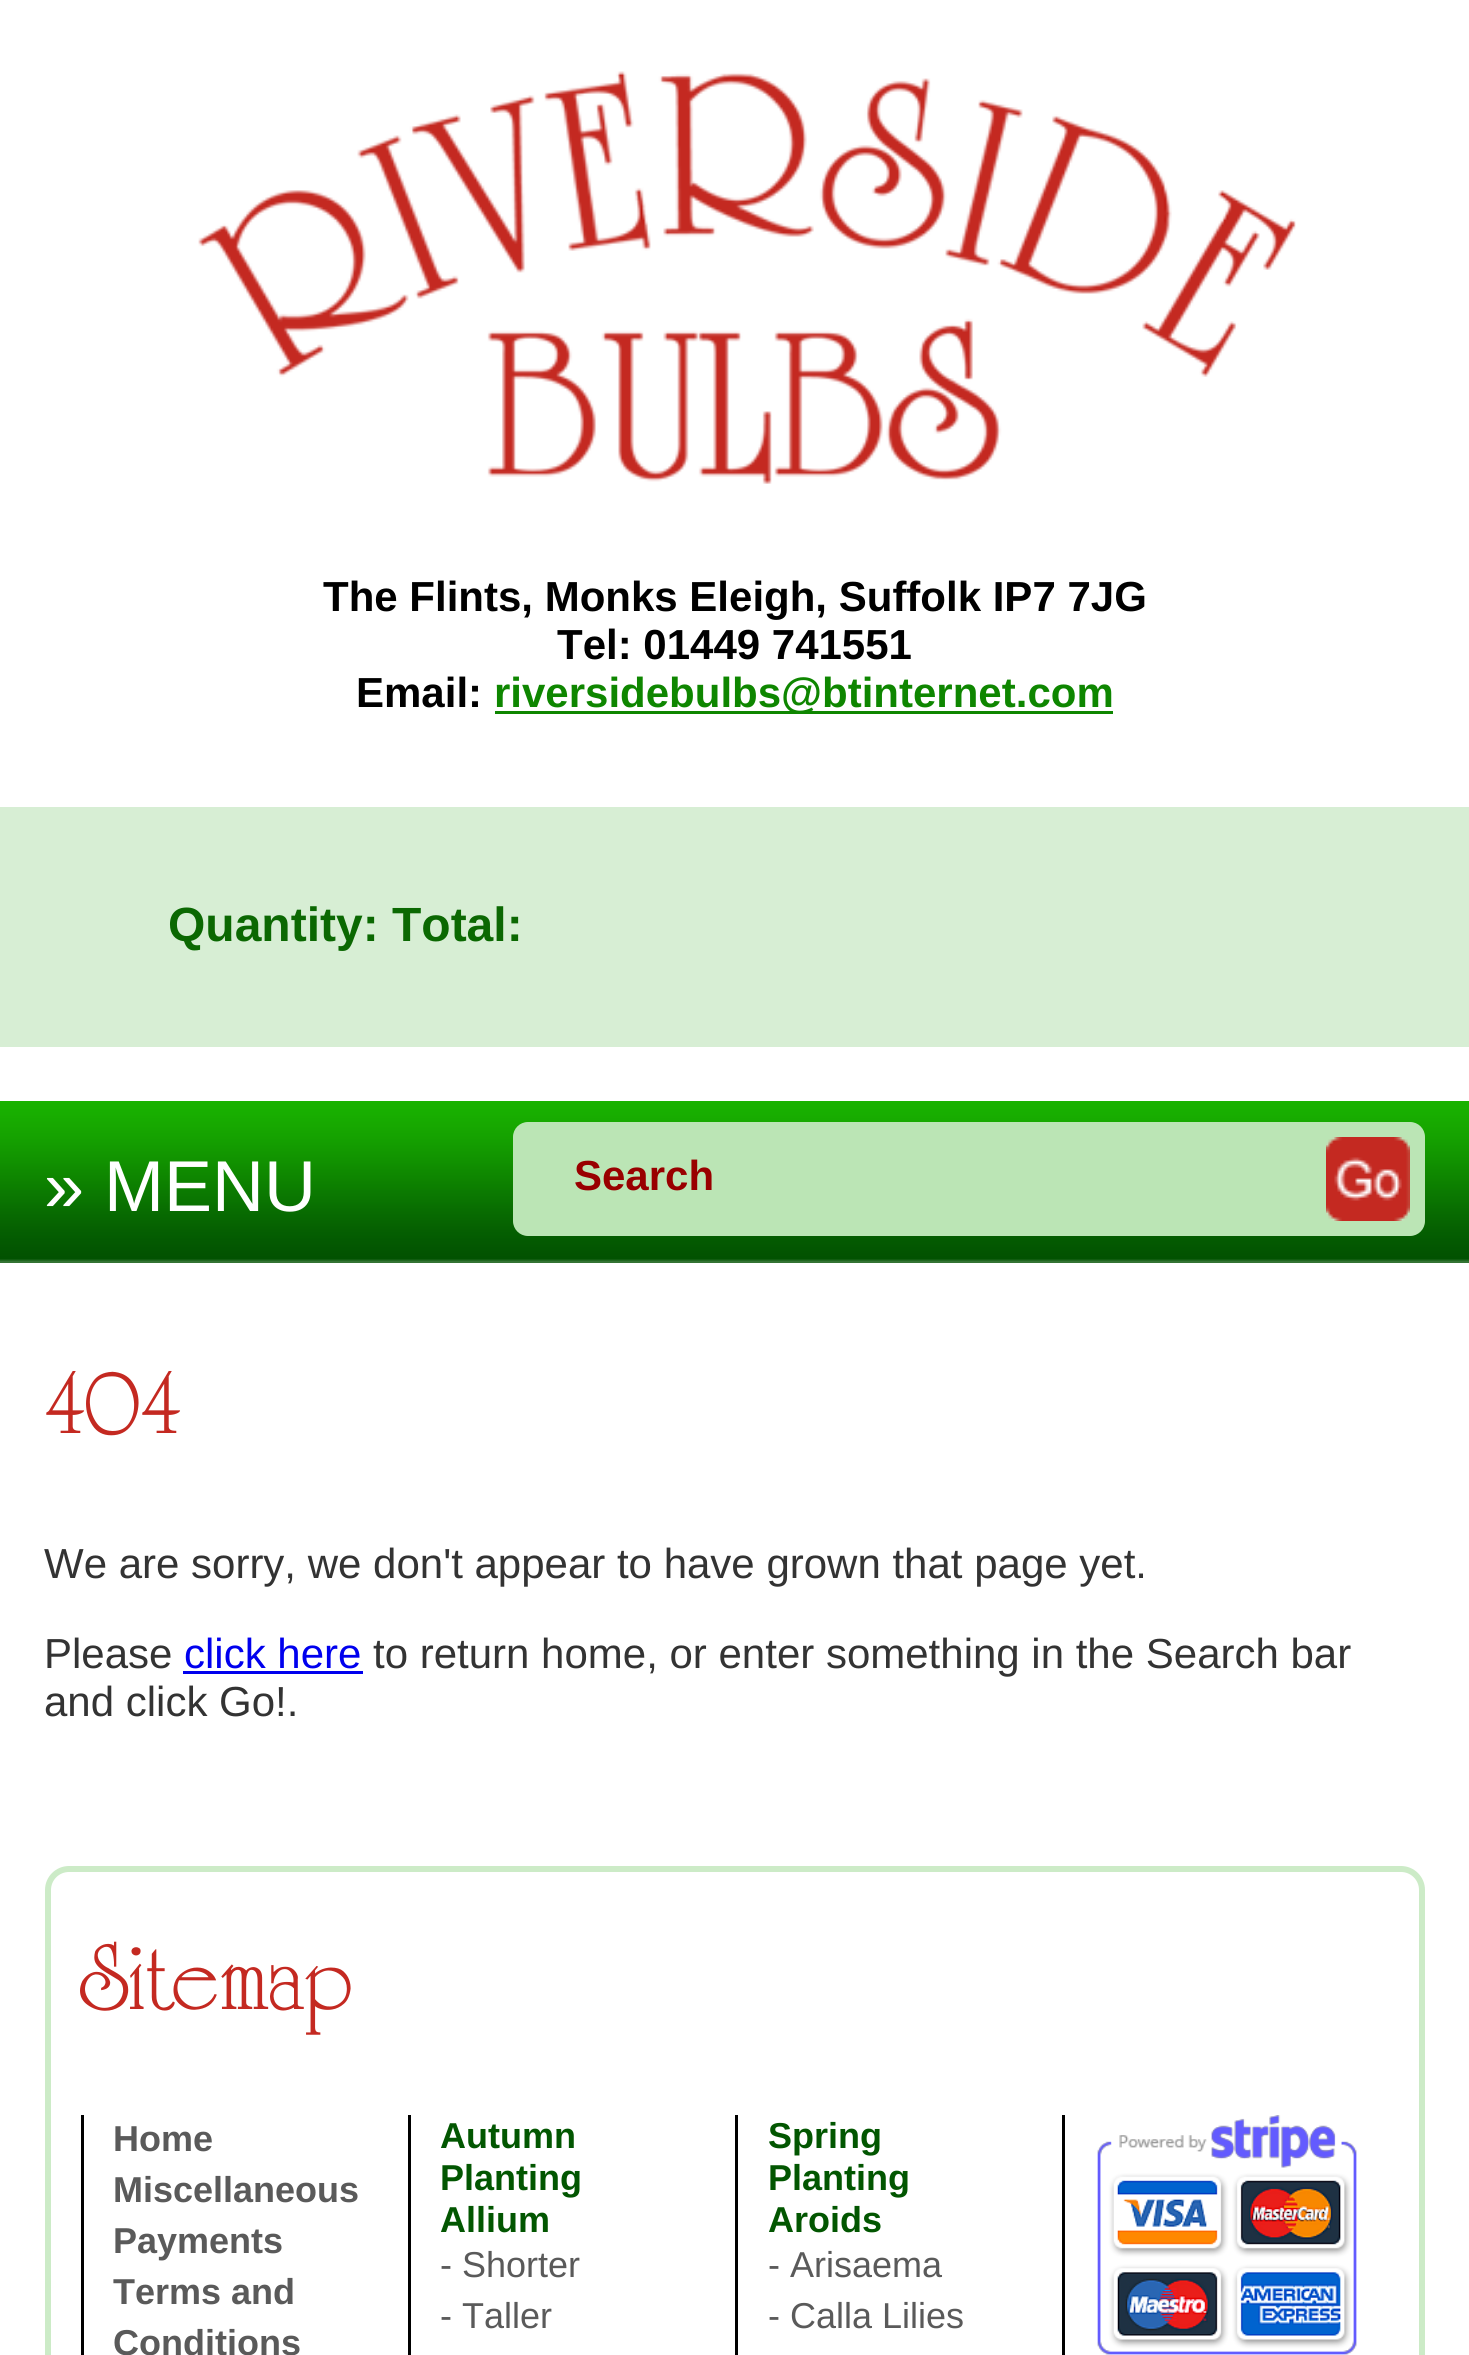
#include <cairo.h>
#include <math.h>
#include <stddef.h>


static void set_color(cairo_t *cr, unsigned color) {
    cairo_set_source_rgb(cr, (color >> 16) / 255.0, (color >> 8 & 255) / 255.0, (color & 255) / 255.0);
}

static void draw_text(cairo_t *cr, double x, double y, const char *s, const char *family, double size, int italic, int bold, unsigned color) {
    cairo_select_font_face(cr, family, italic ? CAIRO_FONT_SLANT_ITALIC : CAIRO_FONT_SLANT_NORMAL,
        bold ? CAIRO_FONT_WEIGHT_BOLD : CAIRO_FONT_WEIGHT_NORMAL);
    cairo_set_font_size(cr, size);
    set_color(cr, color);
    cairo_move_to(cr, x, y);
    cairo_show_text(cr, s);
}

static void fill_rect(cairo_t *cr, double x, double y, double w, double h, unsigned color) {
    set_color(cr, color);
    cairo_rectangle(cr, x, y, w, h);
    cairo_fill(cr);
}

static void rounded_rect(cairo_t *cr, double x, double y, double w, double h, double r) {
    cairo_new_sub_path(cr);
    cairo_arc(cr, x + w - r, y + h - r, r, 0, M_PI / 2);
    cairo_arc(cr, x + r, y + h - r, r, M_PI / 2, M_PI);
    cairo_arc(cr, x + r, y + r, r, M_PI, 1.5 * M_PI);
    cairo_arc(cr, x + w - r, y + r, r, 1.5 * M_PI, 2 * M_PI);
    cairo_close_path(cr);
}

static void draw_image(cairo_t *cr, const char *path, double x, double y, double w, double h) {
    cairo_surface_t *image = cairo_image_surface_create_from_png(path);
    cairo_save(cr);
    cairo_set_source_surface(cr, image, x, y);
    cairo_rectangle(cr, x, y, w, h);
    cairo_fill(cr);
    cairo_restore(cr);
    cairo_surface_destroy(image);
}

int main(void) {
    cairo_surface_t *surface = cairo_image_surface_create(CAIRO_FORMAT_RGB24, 1469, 2355);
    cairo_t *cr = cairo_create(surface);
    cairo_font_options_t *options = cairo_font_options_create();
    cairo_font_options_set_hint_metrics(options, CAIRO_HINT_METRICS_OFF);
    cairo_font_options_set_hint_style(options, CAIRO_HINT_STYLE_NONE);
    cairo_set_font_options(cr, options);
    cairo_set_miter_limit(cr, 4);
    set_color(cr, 0xFFFFFF);
    cairo_paint(cr);
    draw_image(cr, "assets/img1.png", 198, 71, 1098, 413);
    draw_text(cr, 323, 611, "The Flints, Monks Eleigh, Suffolk IP7 7JG", "Liberation Sans", 42, 0, 1, 0x000000);
    draw_text(cr, 557, 659, "Tel: 01449 741551", "Liberation Sans", 42, 0, 1, 0x000000);
    draw_text(cr, 356, 707, "Email:", "Liberation Sans", 42, 0, 1, 0x000000);
    fill_rect(cr, 495, 711, 618, 3, 0x0E8600);
    draw_text(cr, 494, 707, "riversidebulbs@btinternet.com", "Liberation Sans", 42, 0, 1, 0x0E8600);
    fill_rect(cr, 0, 807, 1469, 240, 0xD7EED4);
    draw_text(cr, 168, 941, "Quantity: Total:", "Liberation Sans", 48, 0, 1, 0x0B6802);
    draw_image(cr, "assets/img2.png", 0, 1101, 1469, 162);
    draw_text(cr, 44, 1211, "» MENU", "Liberation Sans", 72, 0, 0, 0xFFFFFF);
    set_color(cr, 0xBBE5B5);
    rounded_rect(cr, 513, 1122, 912, 114, 15);
    cairo_fill(cr);
    draw_text(cr, 574, 1190, "Search", "Liberation Sans", 42, 0, 1, 0x990000);
    draw_image(cr, "assets/img3.png", 1326, 1137, 84, 84);
    draw_text(cr, 44, 1433, "404", "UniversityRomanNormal", 96, 0, 0, 0xC42921);
    draw_text(cr, 44, 1578, "We are sorry, we don't appear to have grown that page yet.", "Liberation Sans", 42, 0, 0, 0x333333);
    draw_text(cr, 44, 1668, "Please", "Liberation Sans", 42, 0, 0, 0x333333);
    draw_text(cr, 184, 1668, "click here", "Liberation Sans", 42, 0, 0, 0x0000EE);
    fill_rect(cr, 183, 1671, 180, 3, 0x0000EE);
    draw_text(cr, 373, 1668, "to return home, or enter something in the Search bar", "Liberation Sans", 42, 0, 0, 0x333333);
    draw_text(cr, 44, 1716, "and click Go!.", "Liberation Sans", 42, 0, 0, 0x333333);
    rounded_rect(cr, 48, 1869, 1374, 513, 21);
    set_color(cr, 0xCCEBC7);
    cairo_set_line_width(cr, 6);
    cairo_stroke(cr);
    draw_text(cr, 80, 2009, "Sitemap", "UniversityRomanNormal", 96, 0, 0, 0xC42921);
    fill_rect(cr, 81, 2115, 3, 240, 0x000000);
    draw_text(cr, 113, 2151, "Home", "Liberation Sans", 36, 0, 1, 0x5A5A5A);
    draw_text(cr, 113, 2202, "Miscellaneous", "Liberation Sans", 36, 0, 1, 0x5A5A5A);
    draw_text(cr, 113, 2253, "Payments", "Liberation Sans", 36, 0, 1, 0x5A5A5A);
    draw_text(cr, 113, 2304, "Terms and", "Liberation Sans", 36, 0, 1, 0x5A5A5A);
    draw_text(cr, 113, 2355, "Conditions", "Liberation Sans", 36, 0, 1, 0x5A5A5A);
    fill_rect(cr, 408, 2115, 3, 240, 0x000000);
    draw_text(cr, 440, 2148, "Autumn", "Liberation Sans", 36, 0, 1, 0x025601);
    draw_text(cr, 440, 2190, "Planting", "Liberation Sans", 36, 0, 1, 0x025601);
    draw_text(cr, 440, 2232, "Allium", "Liberation Sans", 36, 0, 1, 0x025601);
    draw_text(cr, 440, 2277, "- Shorter", "Liberation Sans", 36, 0, 0, 0x5A5A5A);
    draw_text(cr, 440, 2328, "- Taller", "Liberation Sans", 36, 0, 0, 0x5A5A5A);
    fill_rect(cr, 735, 2115, 3, 240, 0x000000);
    draw_text(cr, 768, 2148, "Spring", "Liberation Sans", 36, 0, 1, 0x025601);
    draw_text(cr, 768, 2190, "Planting", "Liberation Sans", 36, 0, 1, 0x025601);
    draw_text(cr, 768, 2232, "Aroids", "Liberation Sans", 36, 0, 1, 0x025601);
    draw_text(cr, 768, 2277, "- Arisaema", "Liberation Sans", 36, 0, 0, 0x5A5A5A);
    draw_text(cr, 768, 2328, "- Calla Lilies", "Liberation Sans", 36, 0, 0, 0x5A5A5A);
    fill_rect(cr, 1062, 2115, 3, 240, 0x000000);
    draw_image(cr, "assets/img4.png", 1097, 2115, 260, 240);
    cairo_surface_write_to_png(surface, "output.png");
    cairo_font_options_destroy(options);
    cairo_destroy(cr);
    cairo_surface_destroy(surface);
    return 0;
}
